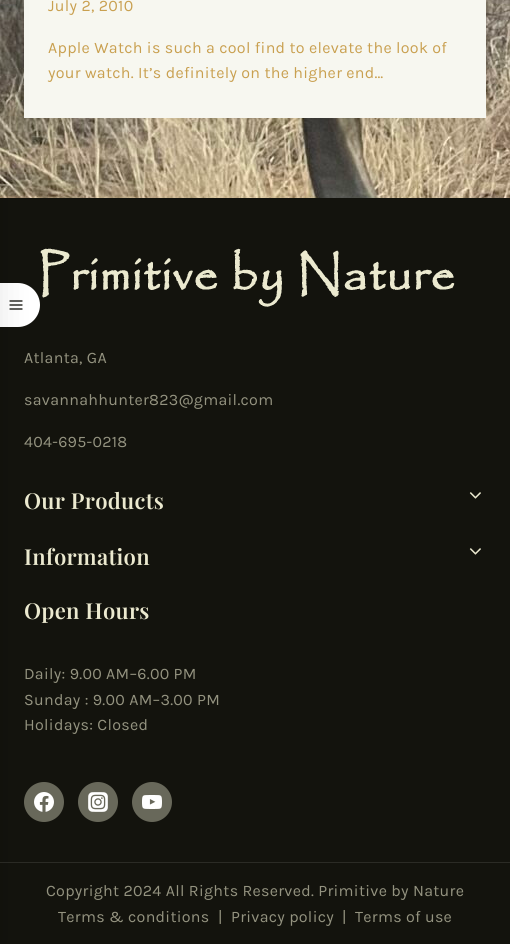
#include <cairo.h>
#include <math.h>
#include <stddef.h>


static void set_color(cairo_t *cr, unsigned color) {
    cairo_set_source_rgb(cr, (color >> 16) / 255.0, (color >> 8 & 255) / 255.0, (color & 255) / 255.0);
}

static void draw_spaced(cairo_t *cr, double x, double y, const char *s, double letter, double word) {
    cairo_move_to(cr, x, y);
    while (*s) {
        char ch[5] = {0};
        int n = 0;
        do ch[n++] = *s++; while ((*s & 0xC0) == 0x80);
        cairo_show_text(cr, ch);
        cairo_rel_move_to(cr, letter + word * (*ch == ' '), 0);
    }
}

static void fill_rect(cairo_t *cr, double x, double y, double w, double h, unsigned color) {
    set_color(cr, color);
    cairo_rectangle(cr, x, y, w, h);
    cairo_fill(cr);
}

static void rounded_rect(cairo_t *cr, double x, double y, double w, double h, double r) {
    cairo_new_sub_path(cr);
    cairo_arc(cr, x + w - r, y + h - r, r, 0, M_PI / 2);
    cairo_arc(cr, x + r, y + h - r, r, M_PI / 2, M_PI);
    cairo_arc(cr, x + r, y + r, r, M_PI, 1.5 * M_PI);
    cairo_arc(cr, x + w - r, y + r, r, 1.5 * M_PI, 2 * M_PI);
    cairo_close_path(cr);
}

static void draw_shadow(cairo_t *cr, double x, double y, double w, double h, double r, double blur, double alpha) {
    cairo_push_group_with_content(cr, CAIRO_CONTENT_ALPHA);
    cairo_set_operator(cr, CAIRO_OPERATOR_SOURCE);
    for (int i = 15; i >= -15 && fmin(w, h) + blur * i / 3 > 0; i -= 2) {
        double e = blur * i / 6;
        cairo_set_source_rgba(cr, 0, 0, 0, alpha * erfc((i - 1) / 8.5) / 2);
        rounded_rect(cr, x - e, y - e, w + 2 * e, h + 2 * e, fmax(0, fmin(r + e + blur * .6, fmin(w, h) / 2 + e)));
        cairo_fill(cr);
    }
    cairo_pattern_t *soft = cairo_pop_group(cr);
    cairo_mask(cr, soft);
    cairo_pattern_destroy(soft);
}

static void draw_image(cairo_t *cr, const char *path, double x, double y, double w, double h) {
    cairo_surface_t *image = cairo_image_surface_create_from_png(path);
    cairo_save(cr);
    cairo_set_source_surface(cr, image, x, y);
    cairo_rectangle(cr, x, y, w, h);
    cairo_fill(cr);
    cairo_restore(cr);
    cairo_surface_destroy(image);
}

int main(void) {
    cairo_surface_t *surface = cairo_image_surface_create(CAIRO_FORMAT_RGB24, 510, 944);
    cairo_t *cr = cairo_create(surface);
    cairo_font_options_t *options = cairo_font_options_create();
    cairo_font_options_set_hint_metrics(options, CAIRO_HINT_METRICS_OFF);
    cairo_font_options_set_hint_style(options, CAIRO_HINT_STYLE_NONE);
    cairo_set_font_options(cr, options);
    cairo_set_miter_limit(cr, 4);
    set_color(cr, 0xFFFFFF);
    cairo_paint(cr);
    draw_image(cr, "assets/img1.png", 0, 0, 510, 198);
    fill_rect(cr, 24, 0, 462, 118, 0xF7F7F0);
    fill_rect(cr, 0, 198, 510, 664, 0x13130D);
    set_color(cr, 0xFFFFFF);
    cairo_new_path(cr);
    cairo_move_to(cr, -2, 283);
    cairo_line_to(cr, 18, 283);
    cairo_curve_to(cr, 30, 283, 40, 293, 40, 305);
    cairo_curve_to(cr, 40, 317, 30, 327, 18, 327);
    cairo_line_to(cr, -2, 327);
    cairo_close_path(cr);
    cairo_fill(cr);
    draw_image(cr, "assets/img2.png", 9, 300, 14, 10);
    draw_image(cr, "assets/img3.png", 40, 248, 415, 59);
    set_color(cr, 0x68685A);
    cairo_arc(cr, 44, 802, 20, 0, 2 * M_PI);
    cairo_fill(cr);
    draw_image(cr, "assets/img5.png", 34, 792, 20, 20);
    fill_rect(cr, 0, 863, 510, 81, 0x13130D);
    fill_rect(cr, 0, 862, 510, 1, 0x2B2B25);
    set_color(cr, 0x000000);
    draw_shadow(cr, -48, 0, 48, 944, 0, 16, 0.1);
    cairo_select_font_face(cr, "Karla", CAIRO_FONT_SLANT_NORMAL, CAIRO_FONT_WEIGHT_NORMAL);
    cairo_set_font_size(cr, 16);
    set_color(cr, 0xC9A050);
    draw_spaced(cr, 48, 11, "July 2, 2010", 0.3, 0);
    draw_spaced(cr, 48, 53, "Apple Watch is such a cool find to elevate the look of", 0.3, 0);
    draw_spaced(cr, 48, 78, "your watch. It’s definitely on the higher end…", 0.3, 0);
    set_color(cr, 0x949380);
    draw_spaced(cr, 24, 363, "Atlanta, GA", 0.3, 0);
    draw_spaced(cr, 24, 405, "savannahhunter823@gmail.com", 0.3, 0);
    draw_spaced(cr, 24, 447, "404-695-0218", 0.3, 0);
    cairo_select_font_face(cr, "Playfair Display SemiBold", CAIRO_FONT_SLANT_NORMAL, CAIRO_FONT_WEIGHT_NORMAL);
    cairo_set_font_size(cr, 22);
    set_color(cr, 0xEBE9CF);
    draw_spaced(cr, 24, 509, "Our Products", 0.3, 0);
    draw_image(cr, "assets/img4.png", 469, 492, 12, 7);
    draw_spaced(cr, 24, 565, "Information", 0.3, 0);
    draw_image(cr, "assets/img4.png", 469, 548, 12, 7);
    draw_spaced(cr, 24, 619, "Open Hours", 0.3, 0);
    cairo_select_font_face(cr, "Karla", CAIRO_FONT_SLANT_NORMAL, CAIRO_FONT_WEIGHT_NORMAL);
    cairo_set_font_size(cr, 16);
    set_color(cr, 0x949380);
    draw_spaced(cr, 24, 679, "Daily: 9.00 AM–6.00 PM", 0.3, 0);
    draw_spaced(cr, 24, 705, "Sunday : 9.00 AM–3.00 PM", 0.3, 0);
    draw_spaced(cr, 24, 730, "Holidays: Closed", 0.3, 0);
    set_color(cr, 0x68685A);
    cairo_new_path(cr);
    cairo_arc(cr, 98, 802, 20, 0, 2 * M_PI);
    cairo_fill(cr);
    draw_image(cr, "assets/img6.png", 88, 792, 20, 20);
    cairo_arc(cr, 152, 802, 20, 0, 2 * M_PI);
    cairo_fill(cr);
    draw_image(cr, "assets/img7.png", 142, 795, 20, 14);
    set_color(cr, 0x949380);
    draw_spaced(cr, 46, 896, "Copyright 2024 All Rights Reserved. Primitive by Nature", 0.3, 0);
    draw_spaced(cr, 58, 922, "Terms & conditions", 0.3, 0);
    draw_spaced(cr, 218, 922, "|", 0.3, 0);
    draw_spaced(cr, 231, 922, "Privacy policy", 0.3, 0);
    draw_spaced(cr, 342, 922, "|  Terms of use", 0.3, 0);
    cairo_surface_write_to_png(surface, "output.png");
    cairo_font_options_destroy(options);
    cairo_destroy(cr);
    cairo_surface_destroy(surface);
    return 0;
}
